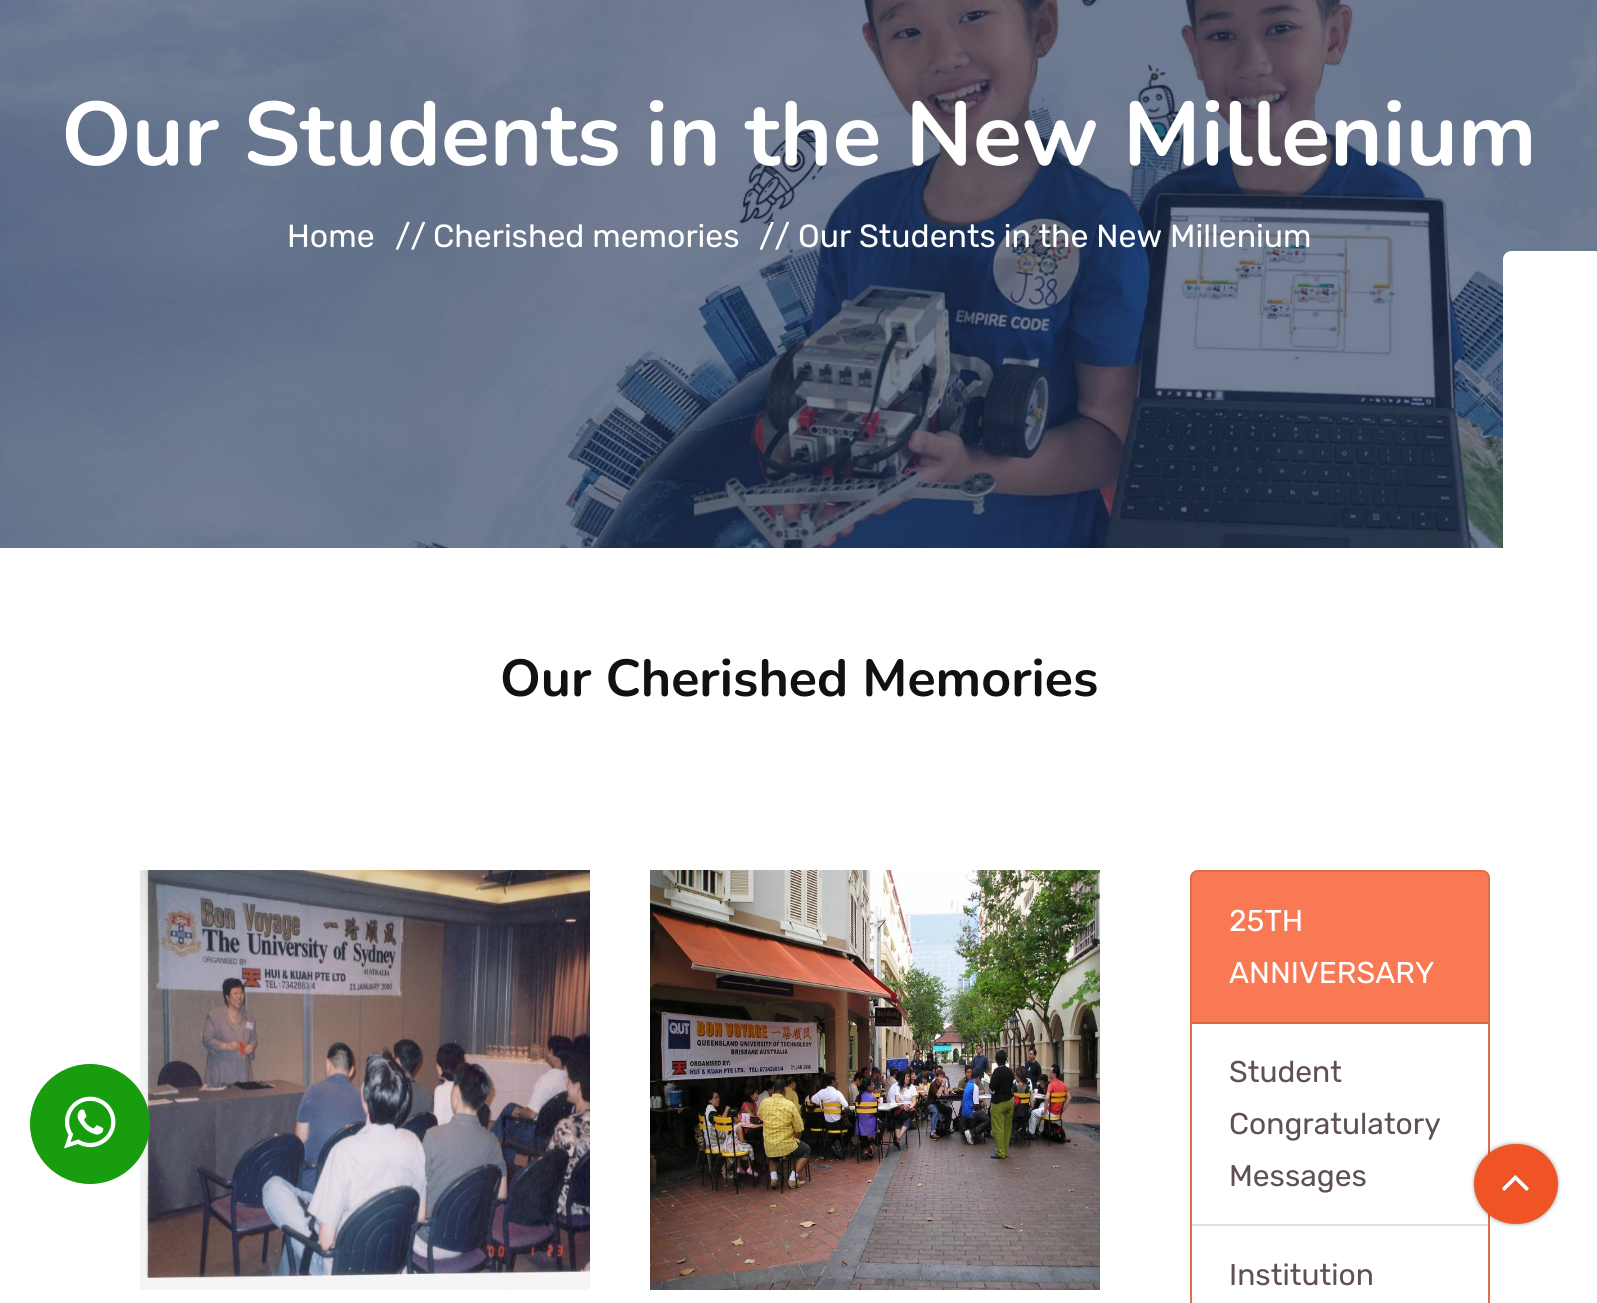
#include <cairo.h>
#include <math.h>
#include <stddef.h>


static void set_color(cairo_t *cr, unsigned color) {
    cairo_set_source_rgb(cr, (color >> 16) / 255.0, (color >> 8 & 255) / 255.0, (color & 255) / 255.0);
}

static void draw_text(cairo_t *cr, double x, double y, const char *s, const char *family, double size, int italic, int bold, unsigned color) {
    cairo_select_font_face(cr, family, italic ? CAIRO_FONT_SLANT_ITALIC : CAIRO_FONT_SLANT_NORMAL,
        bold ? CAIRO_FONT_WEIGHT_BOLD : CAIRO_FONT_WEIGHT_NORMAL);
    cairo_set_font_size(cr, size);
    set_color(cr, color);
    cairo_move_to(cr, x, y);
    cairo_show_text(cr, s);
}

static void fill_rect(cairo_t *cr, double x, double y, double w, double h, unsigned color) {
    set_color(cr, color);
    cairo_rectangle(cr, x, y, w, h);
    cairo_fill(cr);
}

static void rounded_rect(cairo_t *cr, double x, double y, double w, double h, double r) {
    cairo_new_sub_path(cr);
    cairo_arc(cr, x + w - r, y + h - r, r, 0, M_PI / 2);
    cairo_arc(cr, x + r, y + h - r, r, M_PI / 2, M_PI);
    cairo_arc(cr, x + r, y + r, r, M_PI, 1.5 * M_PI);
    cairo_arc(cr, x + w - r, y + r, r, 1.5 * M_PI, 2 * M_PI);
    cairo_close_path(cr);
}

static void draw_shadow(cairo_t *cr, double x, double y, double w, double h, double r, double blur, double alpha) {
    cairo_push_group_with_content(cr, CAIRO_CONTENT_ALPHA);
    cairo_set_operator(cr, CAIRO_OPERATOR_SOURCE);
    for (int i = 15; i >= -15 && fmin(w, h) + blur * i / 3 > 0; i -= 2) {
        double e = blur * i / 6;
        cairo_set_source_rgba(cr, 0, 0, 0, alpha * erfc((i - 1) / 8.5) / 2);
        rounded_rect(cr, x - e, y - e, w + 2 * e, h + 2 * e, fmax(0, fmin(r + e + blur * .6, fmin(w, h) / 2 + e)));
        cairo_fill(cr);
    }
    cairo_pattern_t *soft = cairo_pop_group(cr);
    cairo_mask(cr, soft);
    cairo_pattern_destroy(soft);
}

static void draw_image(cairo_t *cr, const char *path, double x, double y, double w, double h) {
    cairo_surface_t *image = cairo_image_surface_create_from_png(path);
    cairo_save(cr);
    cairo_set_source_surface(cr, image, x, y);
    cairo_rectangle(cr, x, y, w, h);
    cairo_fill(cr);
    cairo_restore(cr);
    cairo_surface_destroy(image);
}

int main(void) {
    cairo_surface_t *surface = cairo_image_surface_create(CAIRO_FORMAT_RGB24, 1597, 1303);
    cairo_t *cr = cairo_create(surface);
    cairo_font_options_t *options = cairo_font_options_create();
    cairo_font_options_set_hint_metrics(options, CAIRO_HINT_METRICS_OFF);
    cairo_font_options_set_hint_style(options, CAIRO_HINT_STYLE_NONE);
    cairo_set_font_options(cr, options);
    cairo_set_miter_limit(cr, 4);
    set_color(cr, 0xFFFFFF);
    cairo_paint(cr);
    draw_image(cr, "assets/img1.png", 0, 0, 1597, 548);
    draw_text(cr, 61, 165, "Our Students in the New Millenium", "Nunito", 90, 0, 1, 0xFFFFFF);
    draw_text(cr, 287, 247, "Home", "Rubik", 32, 0, 0, 0xFFFFFF);
    draw_text(cr, 395, 247, "//", "Rubik", 32, 0, 0, 0xFFFFFF);
    draw_text(cr, 433, 247, "Cherished memories", "Rubik", 32, 0, 0, 0xFFFFFF);
    draw_text(cr, 759, 247, "//", "Rubik", 32, 0, 0, 0xFFFFFF);
    draw_text(cr, 798, 247, "Our Students in the New Millenium", "Rubik", 32, 0, 0, 0xFFFFFF);
    draw_text(cr, 500, 696, "Our Cherished Memories", "Nunito", 52, 0, 1, 0x111111);
    draw_image(cr, "assets/img2.png", 140, 870, 450, 420);
    draw_image(cr, "assets/img3.png", 650, 870, 450, 420);
    set_color(cr, 0xFF7C55);
    rounded_rect(cr, 1190, 870, 300, 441, 8);
    cairo_fill(cr);
    rounded_rect(cr, 1191, 871, 298, 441, 7);
    cairo_set_source_rgba(cr, 0, 0, 0, 0.12);
    cairo_stroke(cr);
    cairo_set_source_rgba(cr, 0, 0, 0, 0.03);
    cairo_rectangle(cr, 1192, 872, 296, 150);
    cairo_fill(cr);
    fill_rect(cr, 1192, 1022, 296, 2, 0xD86948);
    draw_text(cr, 1229, 931, "25TH", "Rubik", 30, 0, 0, 0xFFFFFF);
    draw_text(cr, 1229, 983, "ANNIVERSARY", "Rubik", 30, 0, 0, 0xFFFFFF);
    fill_rect(cr, 1192, 1024, 296, 200, 0xFFFFFF);
    fill_rect(cr, 1192, 1224, 296, 2, 0xDFDFDF);
    draw_text(cr, 1229, 1082, "Student", "Rubik", 30, 0, 0, 0x605055);
    draw_text(cr, 1229, 1134, "Congratulatory", "Rubik", 30, 0, 0, 0x605055);
    draw_text(cr, 1229, 1186, "Messages", "Rubik", 30, 0, 0, 0x605055);
    fill_rect(cr, 1192, 1226, 296, 77, 0xFFFFFF);
    draw_text(cr, 1229, 1285, "Institution", "Rubik", 30, 0, 0, 0x605055);
    set_color(cr, 0xFFFFFF);
    cairo_new_path(cr);
    cairo_move_to(cr, 1503, 753);
    cairo_line_to(cr, 1503, 259);
    cairo_curve_to(cr, 1503, 255, 1507, 251, 1511, 251);
    cairo_line_to(cr, 1595, 251);
    cairo_curve_to(cr, 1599, 251, 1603, 255, 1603, 259);
    cairo_line_to(cr, 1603, 753);
    cairo_curve_to(cr, 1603, 758, 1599, 761, 1595, 761);
    cairo_line_to(cr, 1511, 761);
    cairo_curve_to(cr, 1507, 761, 1503, 758, 1503, 753);
    cairo_close_path(cr);
    cairo_fill(cr);
    set_color(cr, 0x189D0E);
    cairo_arc(cr, 90, 1124, 60, 0, 2 * M_PI);
    cairo_fill(cr);
    draw_image(cr, "assets/img4.png", 64, 1096, 52, 53);
    set_color(cr, 0x000000);
    draw_shadow(cr, 1474, 1144, 84, 80, 40, 2, 0.4);
    set_color(cr, 0xF05324);
    cairo_new_path(cr);
    cairo_move_to(cr, 1516, 1144);
    cairo_curve_to(cr, 1539, 1144, 1558, 1162, 1558, 1184);
    cairo_curve_to(cr, 1558, 1206, 1539, 1224, 1516, 1224);
    cairo_curve_to(cr, 1493, 1224, 1474, 1206, 1474, 1184);
    cairo_curve_to(cr, 1474, 1162, 1493, 1144, 1516, 1144);
    cairo_close_path(cr);
    cairo_fill(cr);
    draw_image(cr, "assets/img5.png", 1502, 1175, 27, 16);
    cairo_surface_write_to_png(surface, "output.png");
    cairo_font_options_destroy(options);
    cairo_destroy(cr);
    cairo_surface_destroy(surface);
    return 0;
}
